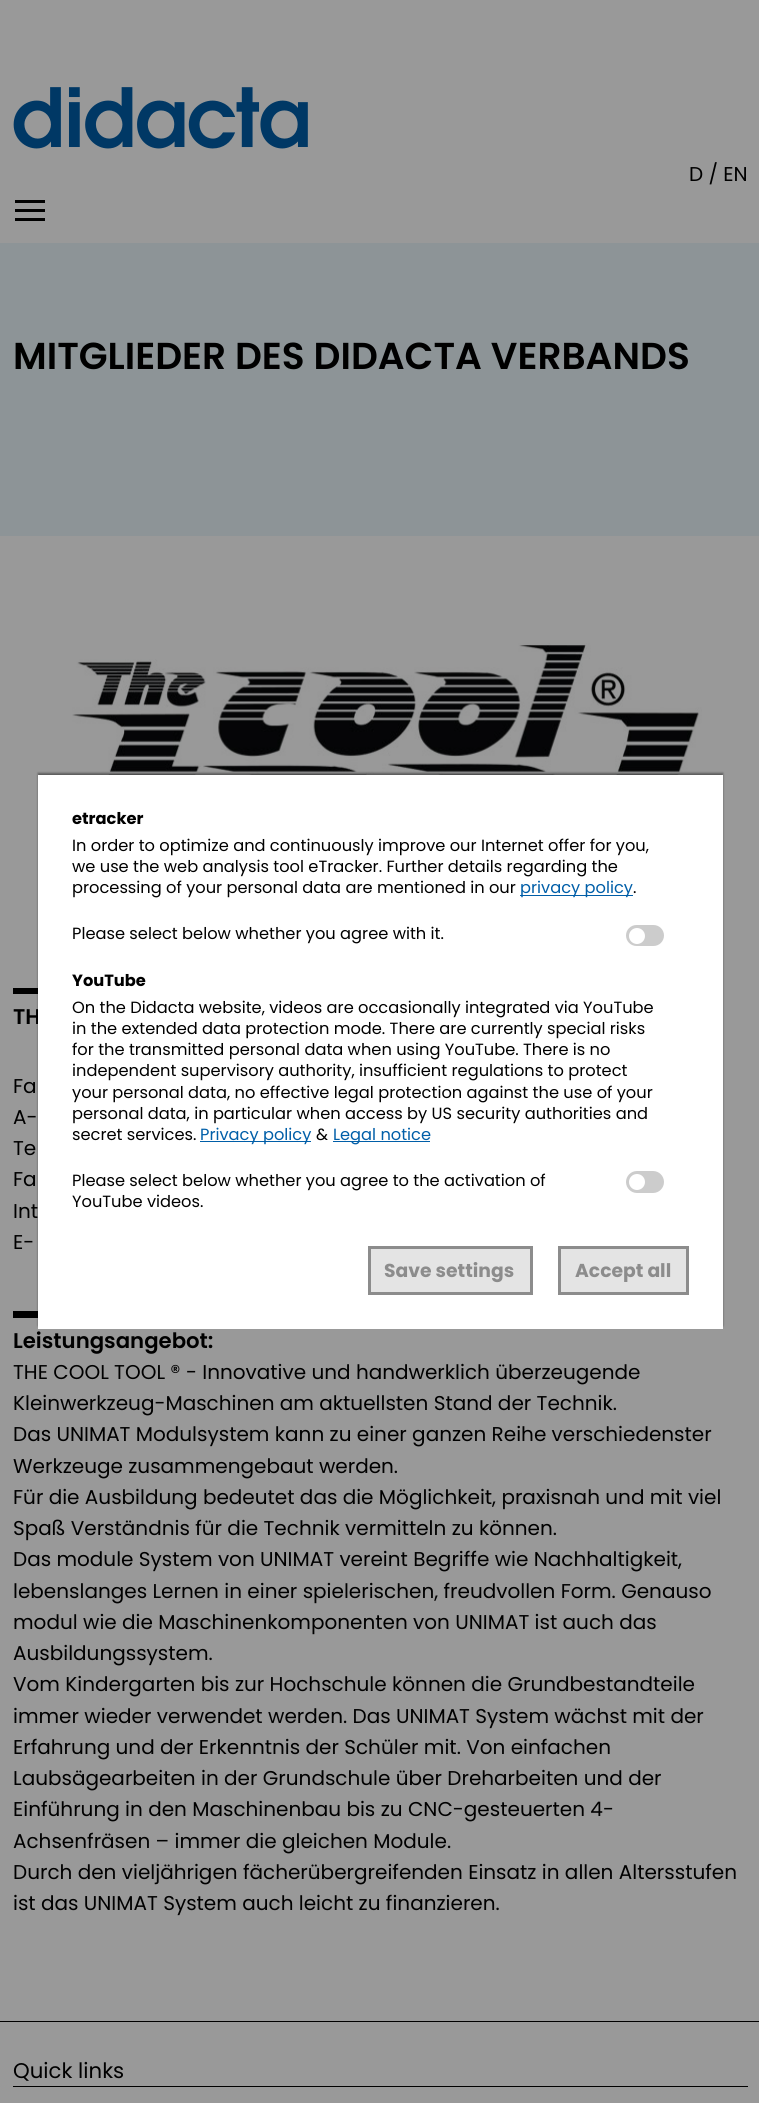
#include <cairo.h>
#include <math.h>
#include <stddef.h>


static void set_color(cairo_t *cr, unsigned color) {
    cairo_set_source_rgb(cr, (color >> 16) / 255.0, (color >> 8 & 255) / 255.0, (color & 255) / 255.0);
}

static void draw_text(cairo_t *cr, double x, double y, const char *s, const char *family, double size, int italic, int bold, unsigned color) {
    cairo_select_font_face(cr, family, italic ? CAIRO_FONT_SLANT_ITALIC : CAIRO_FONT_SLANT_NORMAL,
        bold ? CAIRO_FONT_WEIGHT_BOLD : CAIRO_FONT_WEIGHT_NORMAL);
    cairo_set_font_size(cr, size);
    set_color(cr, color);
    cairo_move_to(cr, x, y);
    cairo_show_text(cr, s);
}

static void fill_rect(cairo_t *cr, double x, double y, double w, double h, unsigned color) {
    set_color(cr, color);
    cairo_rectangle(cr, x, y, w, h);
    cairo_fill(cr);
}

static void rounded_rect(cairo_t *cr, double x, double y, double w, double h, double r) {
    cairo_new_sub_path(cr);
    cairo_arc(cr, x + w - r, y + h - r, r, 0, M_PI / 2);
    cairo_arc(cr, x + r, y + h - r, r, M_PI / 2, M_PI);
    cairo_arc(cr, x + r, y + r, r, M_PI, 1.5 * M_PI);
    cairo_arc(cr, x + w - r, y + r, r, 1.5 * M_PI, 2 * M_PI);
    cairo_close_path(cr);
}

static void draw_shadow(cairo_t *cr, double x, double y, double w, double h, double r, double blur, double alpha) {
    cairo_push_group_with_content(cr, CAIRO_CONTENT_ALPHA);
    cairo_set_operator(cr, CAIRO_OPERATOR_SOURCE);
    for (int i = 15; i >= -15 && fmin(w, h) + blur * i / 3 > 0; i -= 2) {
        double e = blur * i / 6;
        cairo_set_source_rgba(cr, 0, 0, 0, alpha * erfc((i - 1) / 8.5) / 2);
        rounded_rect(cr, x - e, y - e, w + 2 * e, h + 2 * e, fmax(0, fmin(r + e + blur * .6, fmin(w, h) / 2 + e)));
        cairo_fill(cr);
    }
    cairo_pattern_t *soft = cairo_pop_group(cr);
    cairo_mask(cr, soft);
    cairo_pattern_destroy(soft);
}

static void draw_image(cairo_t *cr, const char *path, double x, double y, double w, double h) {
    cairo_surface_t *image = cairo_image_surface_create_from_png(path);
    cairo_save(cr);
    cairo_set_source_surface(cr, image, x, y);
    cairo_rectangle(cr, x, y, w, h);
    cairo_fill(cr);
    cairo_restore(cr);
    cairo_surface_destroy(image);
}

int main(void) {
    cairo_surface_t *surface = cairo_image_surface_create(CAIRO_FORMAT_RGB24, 759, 2103);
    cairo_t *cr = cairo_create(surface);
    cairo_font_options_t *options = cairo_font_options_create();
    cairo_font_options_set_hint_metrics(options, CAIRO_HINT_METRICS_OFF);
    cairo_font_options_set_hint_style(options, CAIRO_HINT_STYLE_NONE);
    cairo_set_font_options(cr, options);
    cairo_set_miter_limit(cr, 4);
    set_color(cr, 0x999999);
    cairo_paint(cr);
    draw_image(cr, "assets/img1.png", 13, 87, 295, 62);
    draw_text(cr, 689, 181, "D / EN", "Poppins", 20, 0, 0, 0x000000);
    fill_rect(cr, 15, 209, 30, 3, 0x000000);
    fill_rect(cr, 15, 200, 30, 3, 0x000000);
    fill_rect(cr, 15, 218, 30, 3, 0x000000);
    fill_rect(cr, 0, 243, 759, 293, 0x8D9497);
    draw_text(cr, 13, 369, "MITGLIEDER DES DIDACTA VERBANDS", "Poppins SemiBold", 37.5, 0, 0, 0x000000);
    draw_image(cr, "assets/img2.png", 72, 643, 630, 132);
    fill_rect(cr, 13, 988, 31, 6, 0x000000);
    draw_text(cr, 13, 1024, "TH", "Poppins SemiBold", 21.25, 0, 0, 0x000000);
    draw_text(cr, 13, 1093, "Fa", "Poppins", 20, 0, 0, 0x000000);
    draw_text(cr, 13, 1124, "A-", "Poppins", 20, 0, 0, 0x000000);
    draw_text(cr, 13, 1155, "Te", "Poppins", 20, 0, 0, 0x000000);
    draw_text(cr, 13, 1186, "Fa", "Poppins", 20, 0, 0, 0x000000);
    draw_text(cr, 13, 1218, "Int", "Poppins", 20, 0, 0, 0x000000);
    draw_text(cr, 13, 1249, "E-", "Poppins", 20, 0, 0, 0x000000);
    fill_rect(cr, 13, 1311, 31, 7, 0x000000);
    draw_text(cr, 13, 1348, "Leistungsangebot:", "Poppins SemiBold", 21.25, 0, 0, 0x000000);
    draw_text(cr, 13, 1379, "THE COOL TOOL ® - Innovative und handwerklich überzeugende", "Poppins", 20, 0, 0, 0x000000);
    draw_text(cr, 13, 1410, "Kleinwerkzeug-Maschinen am aktuellsten Stand der Technik.", "Poppins", 20, 0, 0, 0x000000);
    draw_text(cr, 13, 1441, "Das UNIMAT Modulsystem kann zu einer ganzen Reihe verschiedenster", "Poppins", 20, 0, 0, 0x000000);
    draw_text(cr, 13, 1473, "Werkzeuge zusammengebaut werden.", "Poppins", 20, 0, 0, 0x000000);
    draw_text(cr, 13, 1504, "Für die Ausbildung bedeutet das die Möglichkeit, praxisnah und mit viel", "Poppins", 20, 0, 0, 0x000000);
    draw_text(cr, 13, 1535, "Spaß Verständnis für die Technik vermitteln zu können.", "Poppins", 20, 0, 0, 0x000000);
    draw_text(cr, 13, 1566, "Das module System von UNIMAT vereint Begriffe wie Nachhaltigkeit,", "Poppins", 20, 0, 0, 0x000000);
    draw_text(cr, 13, 1598, "lebenslanges Lernen in einer spielerischen, freudvollen Form. Genauso", "Poppins", 20, 0, 0, 0x000000);
    draw_text(cr, 13, 1629, "modul wie die Maschinenkomponenten von UNIMAT ist auch das", "Poppins", 20, 0, 0, 0x000000);
    draw_text(cr, 13, 1660, "Ausbildungssystem.", "Poppins", 20, 0, 0, 0x000000);
    draw_text(cr, 13, 1691, "Vom Kindergarten bis zur Hochschule können die Grundbestandteile", "Poppins", 20, 0, 0, 0x000000);
    draw_text(cr, 13, 1723, "immer wieder verwendet werden. Das UNIMAT System wächst mit der", "Poppins", 20, 0, 0, 0x000000);
    draw_text(cr, 13, 1754, "Erfahrung und der Erkenntnis der Schüler mit. Von einfachen", "Poppins", 20, 0, 0, 0x000000);
    draw_text(cr, 13, 1785, "Laubsägearbeiten in der Grundschule über Dreharbeiten und der", "Poppins", 20, 0, 0, 0x000000);
    draw_text(cr, 13, 1816, "Einführung in den Maschinenbau bis zu CNC-gesteuerten 4-", "Poppins", 20, 0, 0, 0x000000);
    draw_text(cr, 13, 1848, "Achsenfräsen – immer die gleichen Module.", "Poppins", 20, 0, 0, 0x000000);
    draw_text(cr, 13, 1879, "Durch den vieljährigen fächerübergreifenden Einsatz in allen Altersstufen", "Poppins", 20, 0, 0, 0x000000);
    draw_text(cr, 13, 1910, "ist das UNIMAT System auch leicht zu finanzieren.", "Poppins", 20, 0, 0, 0x000000);
    set_color(cr, 0x000000);
    draw_shadow(cr, 38, 773, 685, 553, 0, 1, 0.4);
    fill_rect(cr, 38, 775, 685, 554, 0xFFFFFF);
    draw_text(cr, 72, 824, "etracker", "Poppins", 16.25, 0, 1, 0x000000);
    draw_text(cr, 72, 851, "In order to optimize and continuously improve our Internet offer for you,", "Poppins", 16.25, 0, 0, 0x000000);
    draw_text(cr, 72, 872, "we use the web analysis tool eTracker. Further details regarding the", "Poppins", 16.25, 0, 0, 0x000000);
    draw_text(cr, 72, 893, "processing of your personal data are mentioned in our", "Poppins", 16.25, 0, 0, 0x000000);
    fill_rect(cr, 520, 895, 113, 1, 0x005EA8);
    draw_text(cr, 520, 893, "privacy policy", "Poppins", 16.25, 0, 0, 0x005EA8);
    draw_text(cr, 633, 893, ".", "Poppins", 16.25, 0, 0, 0x000000);
    draw_text(cr, 72, 939, "Please select below whether you agree with it.", "Poppins", 16.25, 0, 0, 0x000000);
    set_color(cr, 0xCCCCCC);
    rounded_rect(cr, 626, 925, 38, 21, 10.5);
    cairo_fill(cr);
    set_color(cr, 0xFFFFFF);
    cairo_arc(cr, 637, 936, 8, 0, 2 * M_PI);
    cairo_fill(cr);
    draw_text(cr, 72, 986, "YouTube", "Poppins", 16.25, 0, 1, 0x000000);
    draw_text(cr, 72, 1013, "On the Didacta website, videos are occasionally integrated via YouTube", "Poppins", 16.25, 0, 0, 0x000000);
    draw_text(cr, 72, 1034, "in the extended data protection mode. There are currently special risks", "Poppins", 16.25, 0, 0, 0x000000);
    draw_text(cr, 72, 1055, "for the transmitted personal data when using YouTube. There is no", "Poppins", 16.25, 0, 0, 0x000000);
    draw_text(cr, 72, 1076, "independent supervisory authority, insufficient regulations to protect", "Poppins", 16.25, 0, 0, 0x000000);
    draw_text(cr, 72, 1098, "your personal data, no effective legal protection against the use of your", "Poppins", 16.25, 0, 0, 0x000000);
    draw_text(cr, 72, 1119, "personal data, in particular when access by US security authorities and", "Poppins", 16.25, 0, 0, 0x000000);
    draw_text(cr, 72, 1140, "secret services.", "Poppins", 16.25, 0, 0, 0x000000);
    fill_rect(cr, 200, 1141, 111, 1, 0x005EA8);
    draw_text(cr, 200, 1140, "Privacy policy", "Poppins", 16.25, 0, 0, 0x005EA8);
    draw_text(cr, 316, 1140, "&", "Poppins", 16.25, 0, 0, 0x000000);
    fill_rect(cr, 333, 1141, 97, 1, 0x005EA8);
    draw_text(cr, 333, 1140, "Legal notice", "Poppins", 16.25, 0, 0, 0x005EA8);
    draw_text(cr, 72, 1186, "Please select below whether you agree to the activation of", "Poppins", 16.25, 0, 0, 0x000000);
    draw_text(cr, 72, 1207, "YouTube videos.", "Poppins", 16.25, 0, 0, 0x000000);
    set_color(cr, 0xCCCCCC);
    rounded_rect(cr, 626, 1171, 38, 22, 11);
    cairo_fill(cr);
    set_color(cr, 0xFFFFFF);
    cairo_arc(cr, 637, 1182, 8, 0, 2 * M_PI);
    cairo_fill(cr);
    set_color(cr, 0xE4E4E4);
    cairo_rectangle(cr, 369.5, 1247.5, 162, 46);
    cairo_fill_preserve(cr);
    set_color(cr, 0x8C8C8C);
    cairo_set_line_width(cr, 3);
    cairo_stroke(cr);
    draw_text(cr, 384, 1277, "Save settings", "Poppins", 18.75, 0, 1, 0x8C8C8C);
    set_color(cr, 0xE4E4E4);
    cairo_rectangle(cr, 559.5, 1247.5, 128, 46);
    cairo_fill_preserve(cr);
    set_color(cr, 0x8C8C8C);
    cairo_stroke(cr);
    draw_text(cr, 575, 1277, "Accept all", "Poppins", 18.75, 0, 1, 0x8C8C8C);
    fill_rect(cr, 0, 2021, 759, 1, 0x000000);
    fill_rect(cr, 13, 2086, 735, 1, 0x000000);
    draw_text(cr, 13, 2078, "Quick links", "Poppins", 21.25, 0, 0, 0x000000);
    cairo_surface_write_to_png(surface, "output.png");
    cairo_font_options_destroy(options);
    cairo_destroy(cr);
    cairo_surface_destroy(surface);
    return 0;
}
